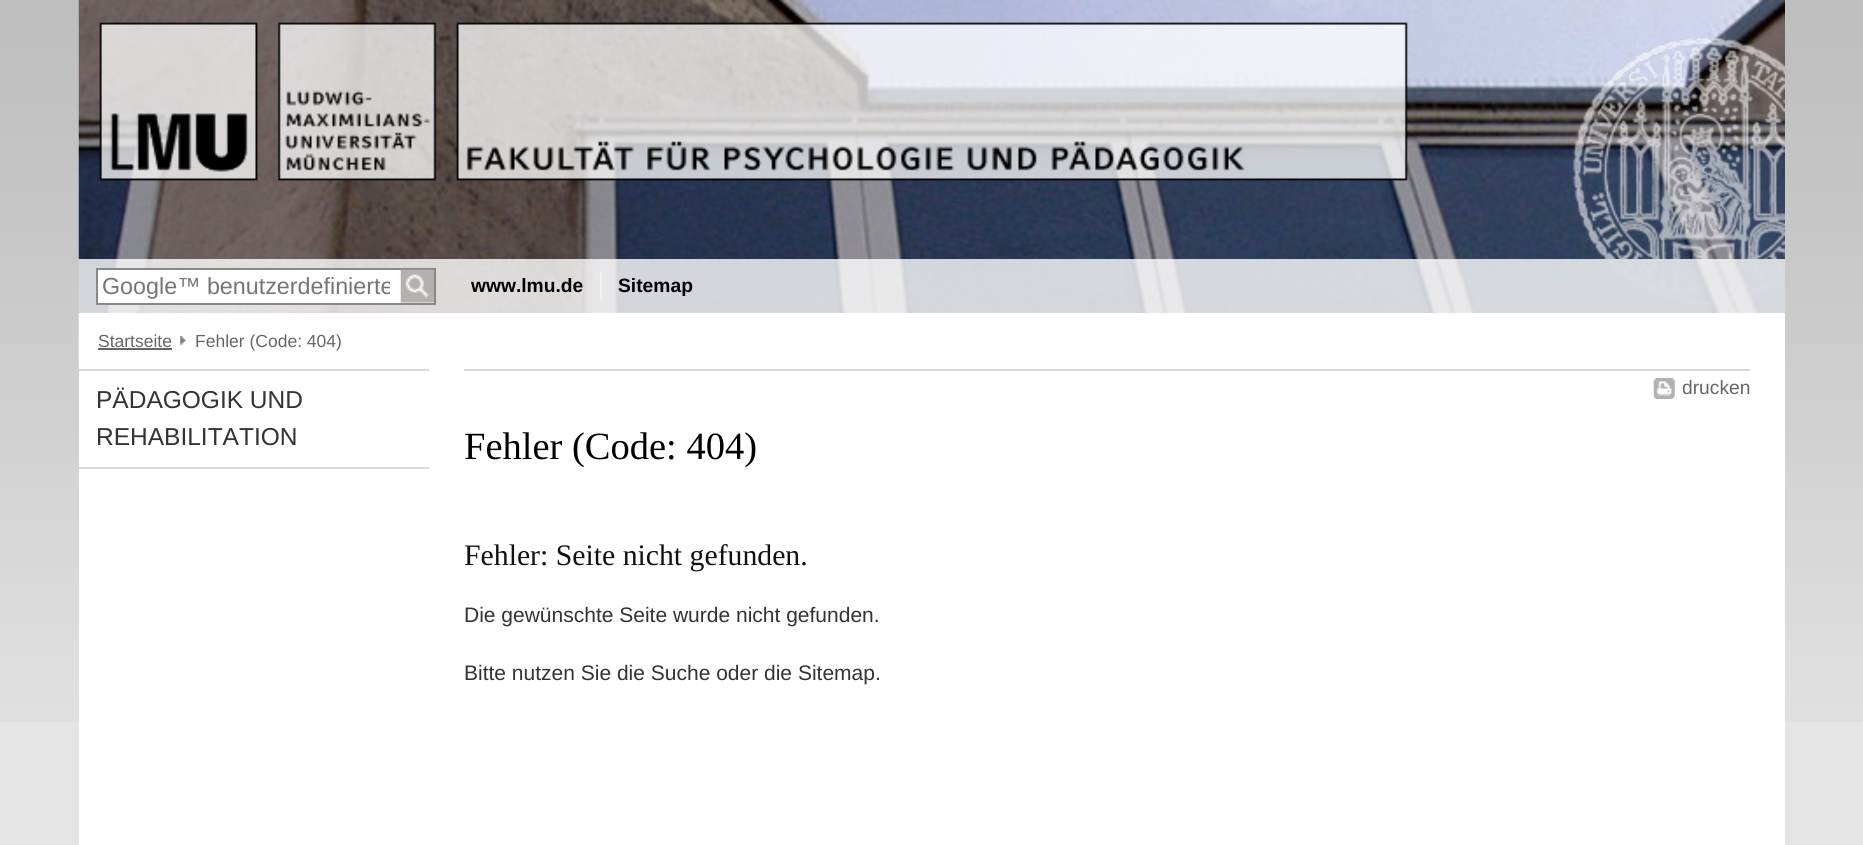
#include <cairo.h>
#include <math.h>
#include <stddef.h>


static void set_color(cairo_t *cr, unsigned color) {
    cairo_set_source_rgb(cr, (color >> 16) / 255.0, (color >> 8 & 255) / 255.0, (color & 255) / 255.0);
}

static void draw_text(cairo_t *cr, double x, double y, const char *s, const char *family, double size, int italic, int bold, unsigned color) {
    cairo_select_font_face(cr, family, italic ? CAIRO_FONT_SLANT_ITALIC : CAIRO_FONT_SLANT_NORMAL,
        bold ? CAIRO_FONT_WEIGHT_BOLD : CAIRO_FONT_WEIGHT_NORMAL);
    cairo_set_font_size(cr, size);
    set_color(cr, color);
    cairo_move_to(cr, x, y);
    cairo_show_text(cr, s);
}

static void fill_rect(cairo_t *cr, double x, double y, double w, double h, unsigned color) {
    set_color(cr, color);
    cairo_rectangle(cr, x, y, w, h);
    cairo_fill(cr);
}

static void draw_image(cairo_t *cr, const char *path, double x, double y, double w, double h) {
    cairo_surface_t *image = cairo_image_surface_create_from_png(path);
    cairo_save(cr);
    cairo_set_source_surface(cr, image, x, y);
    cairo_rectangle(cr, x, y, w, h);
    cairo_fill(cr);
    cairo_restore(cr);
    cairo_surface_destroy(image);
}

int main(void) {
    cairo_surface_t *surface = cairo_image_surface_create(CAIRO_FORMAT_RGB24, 1863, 845);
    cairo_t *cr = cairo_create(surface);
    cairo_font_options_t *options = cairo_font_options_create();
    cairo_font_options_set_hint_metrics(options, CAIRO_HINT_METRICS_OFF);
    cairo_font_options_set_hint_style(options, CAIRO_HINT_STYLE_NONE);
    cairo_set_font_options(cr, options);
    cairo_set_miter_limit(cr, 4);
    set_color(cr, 0xE5E5E5);
    cairo_paint(cr);
    draw_image(cr, "assets/img1.png", 0, 0, 1863, 722);
    fill_rect(cr, 79, 369, 1706, 476, 0xFFFFFF);
    draw_image(cr, "assets/img2.png", 78, 0, 1707, 259);
    draw_image(cr, "assets/img3.png", 78, 259, 1707, 55);
    cairo_rectangle(cr, 97, 269, 338, 35);
    cairo_fill_preserve(cr);
    set_color(cr, 0x888888);
    cairo_stroke(cr);
    cairo_save(cr);
    cairo_rectangle(cr, 102, 273, 288, 26);
    cairo_clip(cr);
    draw_text(cr, 102, 294, "Google™ benutzerdefinierte", "Liberation Sans", 23.3, 0, 0, 0x757575);
    cairo_restore(cr);
    draw_image(cr, "assets/img4.png", 400, 269, 34, 34);
    draw_text(cr, 471, 292, "www.lmu.de", "Liberation Sans", 19.25, 0, 1, 0x000000);
    draw_image(cr, "assets/img5.png", 600, 271, 2, 30);
    draw_text(cr, 618, 292, "Sitemap", "Liberation Sans", 19.25, 0, 1, 0x000000);
    fill_rect(cr, 79, 313, 1706, 56, 0xFFFFFF);
    draw_image(cr, "assets/img6.png", 78, 313, 1, 55);
    draw_text(cr, 98, 347, "Startseite", "Liberation Sans", 17.5, 0, 0, 0x666666);
    fill_rect(cr, 98, 348, 74, 2, 0x666666);
    draw_image(cr, "assets/img7.png", 180, 336, 6, 10);
    draw_text(cr, 195, 347, "Fehler (Code: 404)", "Liberation Sans", 17.5, 0, 0, 0x666666);
    fill_rect(cr, 79, 369, 350, 2, 0xD8D8D8);
    fill_rect(cr, 79, 467, 350, 2, 0xD8D8D8);
    draw_text(cr, 96, 408, "PÄDAGOGIK UND", "Liberation Sans", 24.5, 0, 0, 0x333333);
    draw_text(cr, 96, 445, "REHABILITATION", "Liberation Sans", 24.5, 0, 0, 0x333333);
    fill_rect(cr, 464, 369, 1286, 2, 0xD8D8D8);
    draw_image(cr, "assets/img8.png", 1653, 378, 22, 21);
    draw_text(cr, 1682, 394, "drucken", "Liberation Sans", 19.25, 0, 0, 0x666666);
    draw_text(cr, 464, 459, "Fehler (Code: 404)", "Liberation Serif", 38.5, 0, 0, 0x000000);
    draw_text(cr, 464, 565, "Fehler: Seite nicht gefunden.", "Liberation Serif", 29.75, 0, 0, 0x111111);
    draw_text(cr, 464, 622, "Die gewünschte Seite wurde nicht gefunden.", "Liberation Sans", 21, 0, 0, 0x333333);
    draw_text(cr, 464, 680, "Bitte nutzen Sie die Suche oder die Sitemap.", "Liberation Sans", 21, 0, 0, 0x333333);
    cairo_surface_write_to_png(surface, "output.png");
    cairo_font_options_destroy(options);
    cairo_destroy(cr);
    cairo_surface_destroy(surface);
    return 0;
}
